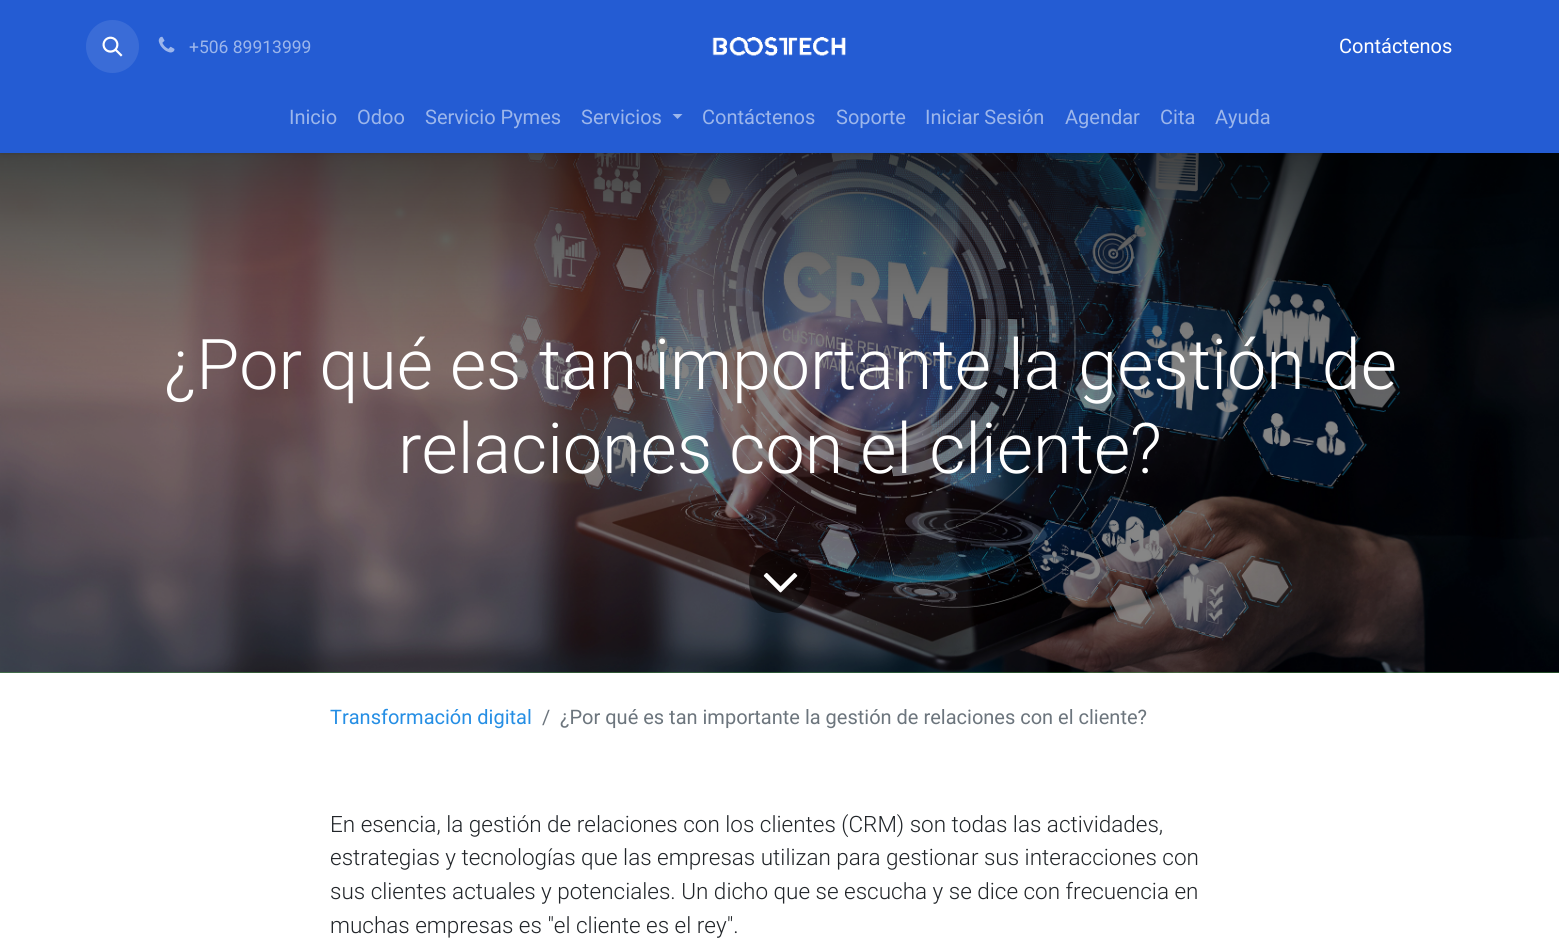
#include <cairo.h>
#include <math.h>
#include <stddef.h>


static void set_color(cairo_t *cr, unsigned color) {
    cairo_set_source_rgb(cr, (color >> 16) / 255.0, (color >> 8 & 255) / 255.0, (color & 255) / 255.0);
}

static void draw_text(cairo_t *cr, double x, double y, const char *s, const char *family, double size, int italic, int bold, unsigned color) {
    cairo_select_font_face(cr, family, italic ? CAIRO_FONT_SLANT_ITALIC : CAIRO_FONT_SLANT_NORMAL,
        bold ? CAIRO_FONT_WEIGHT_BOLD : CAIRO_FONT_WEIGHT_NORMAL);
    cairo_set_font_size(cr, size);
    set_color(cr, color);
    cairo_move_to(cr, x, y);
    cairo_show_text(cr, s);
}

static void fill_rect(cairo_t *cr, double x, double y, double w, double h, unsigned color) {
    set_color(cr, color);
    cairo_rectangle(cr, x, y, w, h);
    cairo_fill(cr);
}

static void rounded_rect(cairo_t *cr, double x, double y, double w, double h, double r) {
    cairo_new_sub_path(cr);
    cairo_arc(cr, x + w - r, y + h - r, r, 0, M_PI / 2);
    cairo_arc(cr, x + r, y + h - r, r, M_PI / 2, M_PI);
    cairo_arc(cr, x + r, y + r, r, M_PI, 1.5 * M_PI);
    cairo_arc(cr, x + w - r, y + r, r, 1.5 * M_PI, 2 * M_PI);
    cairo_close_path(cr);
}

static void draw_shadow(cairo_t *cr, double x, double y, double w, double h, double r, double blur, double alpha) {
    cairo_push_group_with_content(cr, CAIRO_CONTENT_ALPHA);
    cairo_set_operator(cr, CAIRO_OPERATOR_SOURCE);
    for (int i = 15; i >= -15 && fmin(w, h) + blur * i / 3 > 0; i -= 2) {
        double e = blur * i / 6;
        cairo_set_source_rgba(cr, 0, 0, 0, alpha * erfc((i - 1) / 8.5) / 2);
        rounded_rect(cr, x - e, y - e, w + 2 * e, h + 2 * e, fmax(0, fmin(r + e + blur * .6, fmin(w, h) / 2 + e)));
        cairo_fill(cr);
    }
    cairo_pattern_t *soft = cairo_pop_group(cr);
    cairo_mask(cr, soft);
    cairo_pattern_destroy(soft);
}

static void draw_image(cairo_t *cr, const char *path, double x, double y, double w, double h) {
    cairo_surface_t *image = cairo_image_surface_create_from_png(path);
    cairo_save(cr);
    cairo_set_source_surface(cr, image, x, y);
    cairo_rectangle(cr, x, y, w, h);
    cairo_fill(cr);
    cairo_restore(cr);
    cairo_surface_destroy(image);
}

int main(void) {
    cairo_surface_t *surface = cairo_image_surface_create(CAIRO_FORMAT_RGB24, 1559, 946);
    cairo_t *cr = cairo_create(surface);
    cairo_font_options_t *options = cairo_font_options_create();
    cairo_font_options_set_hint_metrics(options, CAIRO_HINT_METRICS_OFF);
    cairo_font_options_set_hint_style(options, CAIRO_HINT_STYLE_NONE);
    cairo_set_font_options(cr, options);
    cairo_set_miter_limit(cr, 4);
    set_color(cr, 0xFFFFFF);
    cairo_paint(cr);
    fill_rect(cr, 0, 672, 1559, 1, 0x4B974B);
    draw_image(cr, "assets/img4.png", 0, 153, 1559, 520);
    set_color(cr, 0x000000);
    draw_shadow(cr, 0, 1, 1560, 153, 0, 2, 0.1);
    fill_rect(cr, 0, 0, 1559, 153, 0x245CD3);
    set_color(cr, 0x3A6CD7);
    cairo_arc(cr, 112.5, 46.5, 26.5, 0, 2 * M_PI);
    cairo_fill(cr);
    draw_image(cr, "assets/img1.png", 102, 36, 21, 21);
    draw_image(cr, "assets/img2.png", 158, 36, 17, 17);
    draw_text(cr, 189, 53, "+506 89913999", "Roboto", 17.5, 0, 0, 0x9CB6EB);
    draw_image(cr, "assets/img3.png", 712, 37, 134, 19);
    draw_text(cr, 1339, 53, "Contáctenos", "Roboto", 20, 0, 0, 0xFFFFFF);
    draw_text(cr, 289, 124, "Inicio", "Roboto", 20, 0, 0, 0x9CB6EB);
    draw_text(cr, 357, 124, "Odoo", "Roboto", 20, 0, 0, 0x9CB6EB);
    draw_text(cr, 425, 124, "Servicio Pymes", "Roboto", 20, 0, 0, 0x9CB6EB);
    draw_text(cr, 581, 124, "Servicios", "Roboto", 20, 0, 0, 0x9CB6EB);
    cairo_new_path(cr);
    cairo_move_to(cr, 672.5, 114);
    cairo_line_to(cr, 682.5, 114);
    cairo_line_to(cr, 677.5, 119);
    cairo_close_path(cr);
    cairo_fill(cr);
    draw_text(cr, 702, 124, "Contáctenos", "Roboto", 20, 0, 0, 0x9CB6EB);
    draw_text(cr, 836, 124, "Soporte", "Roboto", 20, 0, 0, 0x9CB6EB);
    draw_text(cr, 925, 124, "Iniciar Sesión", "Roboto", 20, 0, 0, 0x9CB6EB);
    draw_text(cr, 1065, 124, "Agendar", "Roboto", 20, 0, 0, 0x9CB6EB);
    draw_text(cr, 1160, 124, "Cita", "Roboto", 20, 0, 0, 0x9CB6EB);
    draw_text(cr, 1215, 124, "Ayuda", "Roboto", 20, 0, 0, 0x9CB6EB);
    draw_text(cr, 164, 389, "¿Por qué es tan importante la gestión de", "Roboto Light", 70, 0, 0, 0xFFFFFF);
    draw_text(cr, 398, 473, "relaciones con el cliente?", "Roboto Light", 70, 0, 0, 0xFFFFFF);
    cairo_set_source_rgba(cr, 0, 0, 0, 0.5);
    rounded_rect(cr, 749, 550, 62, 63, 31);
    cairo_fill(cr);
    draw_image(cr, "assets/img5.png", 763, 572, 35, 21);
    draw_text(cr, 330, 724, "Transformación digital", "Roboto", 20, 0, 0, 0x258EE4);
    draw_text(cr, 542, 724, "/", "Roboto", 20, 0, 0, 0x6C757D);
    draw_text(cr, 560, 724, "¿Por qué es tan importante la gestión de relaciones con el cliente?", "Roboto", 20, 0, 0, 0x6C757D);
    draw_text(cr, 330, 832, "En esencia, la gestión de relaciones con los clientes (CRM) son todas las actividades,", "Roboto Light", 22.5, 0, 0, 0x212529);
    draw_text(cr, 330, 865, "estrategias y tecnologías que las empresas utilizan para gestionar sus interacciones con", "Roboto Light", 22.5, 0, 0, 0x212529);
    draw_text(cr, 330, 899, "sus clientes actuales y potenciales. Un dicho que se escucha y se dice con frecuencia en", "Roboto Light", 22.5, 0, 0, 0x212529);
    draw_text(cr, 330, 933, "muchas empresas es \"el cliente es el rey\".", "Roboto Light", 22.5, 0, 0, 0x212529);
    cairo_surface_write_to_png(surface, "output.png");
    cairo_font_options_destroy(options);
    cairo_destroy(cr);
    cairo_surface_destroy(surface);
    return 0;
}
